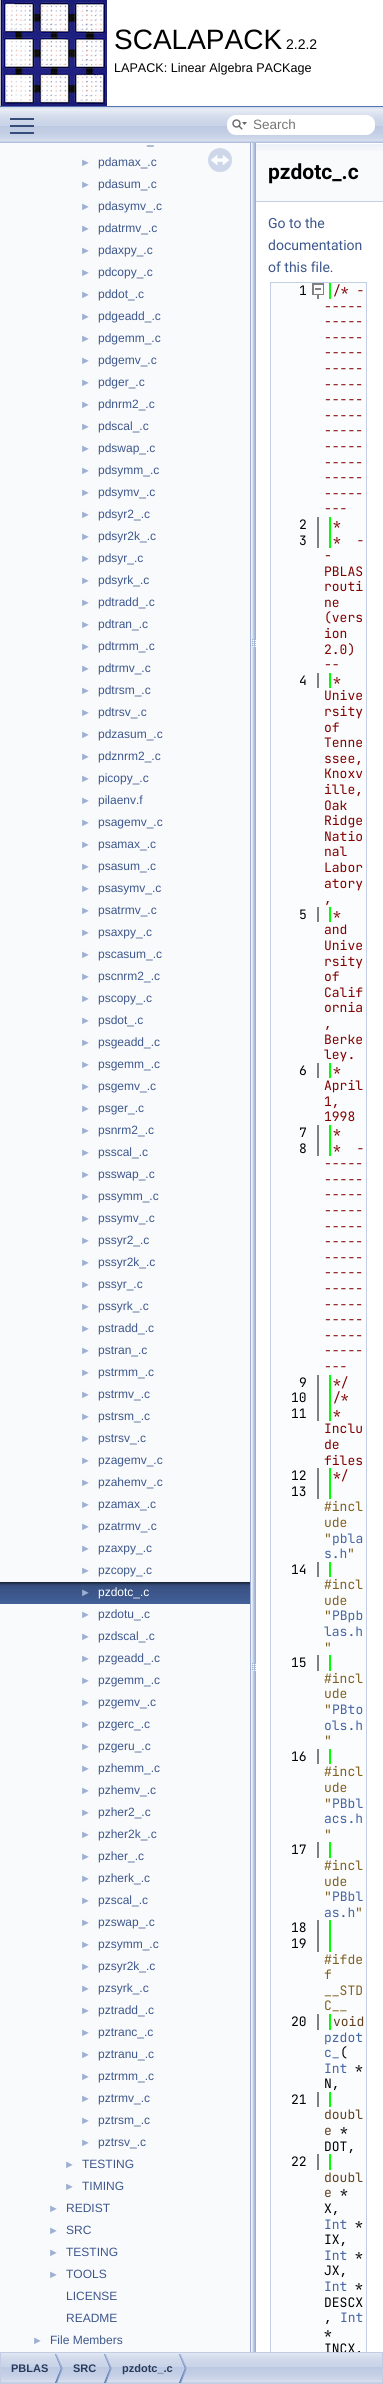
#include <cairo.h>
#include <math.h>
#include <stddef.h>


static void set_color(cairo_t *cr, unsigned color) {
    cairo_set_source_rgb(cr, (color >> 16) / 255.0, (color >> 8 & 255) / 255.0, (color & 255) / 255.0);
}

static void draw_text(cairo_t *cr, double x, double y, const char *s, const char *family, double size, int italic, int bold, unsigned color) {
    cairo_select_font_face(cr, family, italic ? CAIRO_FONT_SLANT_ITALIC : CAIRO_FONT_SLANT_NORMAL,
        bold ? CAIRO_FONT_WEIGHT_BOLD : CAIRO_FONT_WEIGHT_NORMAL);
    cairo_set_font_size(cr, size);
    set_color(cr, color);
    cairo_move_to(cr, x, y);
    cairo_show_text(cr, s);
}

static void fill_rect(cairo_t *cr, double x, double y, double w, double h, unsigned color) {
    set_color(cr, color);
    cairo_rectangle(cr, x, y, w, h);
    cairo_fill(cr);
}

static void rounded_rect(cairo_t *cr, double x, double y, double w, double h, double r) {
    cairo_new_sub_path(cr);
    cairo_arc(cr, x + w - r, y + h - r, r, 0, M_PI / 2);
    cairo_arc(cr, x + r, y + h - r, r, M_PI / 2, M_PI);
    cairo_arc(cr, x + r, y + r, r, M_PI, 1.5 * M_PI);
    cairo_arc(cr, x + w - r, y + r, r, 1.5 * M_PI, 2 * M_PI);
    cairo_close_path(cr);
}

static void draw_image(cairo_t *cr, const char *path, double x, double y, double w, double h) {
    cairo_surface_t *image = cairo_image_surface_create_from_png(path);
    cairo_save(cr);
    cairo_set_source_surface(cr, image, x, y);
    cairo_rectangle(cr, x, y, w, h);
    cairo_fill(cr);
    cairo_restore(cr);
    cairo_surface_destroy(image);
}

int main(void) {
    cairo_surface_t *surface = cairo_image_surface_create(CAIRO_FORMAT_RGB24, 383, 2384);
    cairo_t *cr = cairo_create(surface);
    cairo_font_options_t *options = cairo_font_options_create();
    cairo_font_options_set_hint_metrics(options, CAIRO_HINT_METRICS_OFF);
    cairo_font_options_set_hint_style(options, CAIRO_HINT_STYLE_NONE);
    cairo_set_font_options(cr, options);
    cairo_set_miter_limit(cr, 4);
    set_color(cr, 0xFFFFFF);
    cairo_paint(cr);
    fill_rect(cr, 0, 106, 383, 1, 0x5373B4);
    draw_image(cr, "assets/img1.png", 0, 0, 107, 106);
    draw_text(cr, 114, 49, "SCALAPACK", "Liberation Sans", 28, 0, 0, 0x000000);
    draw_text(cr, 286, 49, "2.2.2", "Liberation Sans", 14, 0, 0, 0x000000);
    draw_text(cr, 114, 72, "LAPACK: Linear Algebra PACKage", "Liberation Sans", 12.6, 0, 0, 0x000000);
    draw_image(cr, "assets/img2.png", 0, 107, 383, 36);
    fill_rect(cr, 10, 125, 24, 2, 0x364D7C);
    fill_rect(cr, 10, 118, 24, 2, 0x364D7C);
    fill_rect(cr, 10, 132, 24, 2, 0x364D7C);
    set_color(cr, 0xFFFFFF);
    rounded_rect(cr, 227, 115, 148, 20, 9);
    cairo_fill(cr);
    draw_image(cr, "assets/img3.png", 232, 119, 15, 11);
    draw_text(cr, 253, 129, "Search", "Liberation Sans", 13.5, 0, 0, 0x757575);
    fill_rect(cr, 0, 143, 250, 2209, 0xF9FAFC);
    draw_text(cr, 147, 144, "_", "Liberation Sans", 12, 0, 0, 0x3D578C);
    draw_text(cr, 80, 166, "►", "Liberation Sans", 11, 0, 0, 0x9CAFD4);
    draw_text(cr, 98, 166, "pdamax_.c", "Liberation Sans", 12, 0, 0, 0x3D578C);
    draw_text(cr, 80, 188, "►", "Liberation Sans", 11, 0, 0, 0x9CAFD4);
    draw_text(cr, 98, 188, "pdasum_.c", "Liberation Sans", 12, 0, 0, 0x3D578C);
    draw_text(cr, 80, 210, "►", "Liberation Sans", 11, 0, 0, 0x9CAFD4);
    draw_text(cr, 98, 210, "pdasymv_.c", "Liberation Sans", 12, 0, 0, 0x3D578C);
    draw_text(cr, 80, 232, "►", "Liberation Sans", 11, 0, 0, 0x9CAFD4);
    draw_text(cr, 98, 232, "pdatrmv_.c", "Liberation Sans", 12, 0, 0, 0x3D578C);
    draw_text(cr, 80, 254, "►", "Liberation Sans", 11, 0, 0, 0x9CAFD4);
    draw_text(cr, 98, 254, "pdaxpy_.c", "Liberation Sans", 12, 0, 0, 0x3D578C);
    draw_text(cr, 80, 276, "►", "Liberation Sans", 11, 0, 0, 0x9CAFD4);
    draw_text(cr, 98, 276, "pdcopy_.c", "Liberation Sans", 12, 0, 0, 0x3D578C);
    draw_text(cr, 80, 298, "►", "Liberation Sans", 11, 0, 0, 0x9CAFD4);
    draw_text(cr, 98, 298, "pddot_.c", "Liberation Sans", 12, 0, 0, 0x3D578C);
    draw_text(cr, 80, 320, "►", "Liberation Sans", 11, 0, 0, 0x9CAFD4);
    draw_text(cr, 98, 320, "pdgeadd_.c", "Liberation Sans", 12, 0, 0, 0x3D578C);
    draw_text(cr, 80, 342, "►", "Liberation Sans", 11, 0, 0, 0x9CAFD4);
    draw_text(cr, 98, 342, "pdgemm_.c", "Liberation Sans", 12, 0, 0, 0x3D578C);
    draw_text(cr, 80, 364, "►", "Liberation Sans", 11, 0, 0, 0x9CAFD4);
    draw_text(cr, 98, 364, "pdgemv_.c", "Liberation Sans", 12, 0, 0, 0x3D578C);
    draw_text(cr, 80, 386, "►", "Liberation Sans", 11, 0, 0, 0x9CAFD4);
    draw_text(cr, 98, 386, "pdger_.c", "Liberation Sans", 12, 0, 0, 0x3D578C);
    draw_text(cr, 80, 408, "►", "Liberation Sans", 11, 0, 0, 0x9CAFD4);
    draw_text(cr, 98, 408, "pdnrm2_.c", "Liberation Sans", 12, 0, 0, 0x3D578C);
    draw_text(cr, 80, 430, "►", "Liberation Sans", 11, 0, 0, 0x9CAFD4);
    draw_text(cr, 98, 430, "pdscal_.c", "Liberation Sans", 12, 0, 0, 0x3D578C);
    draw_text(cr, 80, 452, "►", "Liberation Sans", 11, 0, 0, 0x9CAFD4);
    draw_text(cr, 98, 452, "pdswap_.c", "Liberation Sans", 12, 0, 0, 0x3D578C);
    draw_text(cr, 80, 474, "►", "Liberation Sans", 11, 0, 0, 0x9CAFD4);
    draw_text(cr, 98, 474, "pdsymm_.c", "Liberation Sans", 12, 0, 0, 0x3D578C);
    draw_text(cr, 80, 496, "►", "Liberation Sans", 11, 0, 0, 0x9CAFD4);
    draw_text(cr, 98, 496, "pdsymv_.c", "Liberation Sans", 12, 0, 0, 0x3D578C);
    draw_text(cr, 80, 518, "►", "Liberation Sans", 11, 0, 0, 0x9CAFD4);
    draw_text(cr, 98, 518, "pdsyr2_.c", "Liberation Sans", 12, 0, 0, 0x3D578C);
    draw_text(cr, 80, 540, "►", "Liberation Sans", 11, 0, 0, 0x9CAFD4);
    draw_text(cr, 98, 540, "pdsyr2k_.c", "Liberation Sans", 12, 0, 0, 0x3D578C);
    draw_text(cr, 80, 562, "►", "Liberation Sans", 11, 0, 0, 0x9CAFD4);
    draw_text(cr, 98, 562, "pdsyr_.c", "Liberation Sans", 12, 0, 0, 0x3D578C);
    draw_text(cr, 80, 584, "►", "Liberation Sans", 11, 0, 0, 0x9CAFD4);
    draw_text(cr, 98, 584, "pdsyrk_.c", "Liberation Sans", 12, 0, 0, 0x3D578C);
    draw_text(cr, 80, 606, "►", "Liberation Sans", 11, 0, 0, 0x9CAFD4);
    draw_text(cr, 98, 606, "pdtradd_.c", "Liberation Sans", 12, 0, 0, 0x3D578C);
    draw_text(cr, 80, 628, "►", "Liberation Sans", 11, 0, 0, 0x9CAFD4);
    draw_text(cr, 98, 628, "pdtran_.c", "Liberation Sans", 12, 0, 0, 0x3D578C);
    draw_text(cr, 80, 650, "►", "Liberation Sans", 11, 0, 0, 0x9CAFD4);
    draw_text(cr, 98, 650, "pdtrmm_.c", "Liberation Sans", 12, 0, 0, 0x3D578C);
    draw_text(cr, 80, 672, "►", "Liberation Sans", 11, 0, 0, 0x9CAFD4);
    draw_text(cr, 98, 672, "pdtrmv_.c", "Liberation Sans", 12, 0, 0, 0x3D578C);
    draw_text(cr, 80, 694, "►", "Liberation Sans", 11, 0, 0, 0x9CAFD4);
    draw_text(cr, 98, 694, "pdtrsm_.c", "Liberation Sans", 12, 0, 0, 0x3D578C);
    draw_text(cr, 80, 716, "►", "Liberation Sans", 11, 0, 0, 0x9CAFD4);
    draw_text(cr, 98, 716, "pdtrsv_.c", "Liberation Sans", 12, 0, 0, 0x3D578C);
    draw_text(cr, 80, 738, "►", "Liberation Sans", 11, 0, 0, 0x9CAFD4);
    draw_text(cr, 98, 738, "pdzasum_.c", "Liberation Sans", 12, 0, 0, 0x3D578C);
    draw_text(cr, 80, 760, "►", "Liberation Sans", 11, 0, 0, 0x9CAFD4);
    draw_text(cr, 98, 760, "pdznrm2_.c", "Liberation Sans", 12, 0, 0, 0x3D578C);
    draw_text(cr, 80, 782, "►", "Liberation Sans", 11, 0, 0, 0x9CAFD4);
    draw_text(cr, 98, 782, "picopy_.c", "Liberation Sans", 12, 0, 0, 0x3D578C);
    draw_text(cr, 80, 804, "►", "Liberation Sans", 11, 0, 0, 0x9CAFD4);
    draw_text(cr, 98, 804, "pilaenv.f", "Liberation Sans", 12, 0, 0, 0x3D578C);
    draw_text(cr, 80, 826, "►", "Liberation Sans", 11, 0, 0, 0x9CAFD4);
    draw_text(cr, 98, 826, "psagemv_.c", "Liberation Sans", 12, 0, 0, 0x3D578C);
    draw_text(cr, 80, 848, "►", "Liberation Sans", 11, 0, 0, 0x9CAFD4);
    draw_text(cr, 98, 848, "psamax_.c", "Liberation Sans", 12, 0, 0, 0x3D578C);
    draw_text(cr, 80, 870, "►", "Liberation Sans", 11, 0, 0, 0x9CAFD4);
    draw_text(cr, 98, 870, "psasum_.c", "Liberation Sans", 12, 0, 0, 0x3D578C);
    draw_text(cr, 80, 892, "►", "Liberation Sans", 11, 0, 0, 0x9CAFD4);
    draw_text(cr, 98, 892, "psasymv_.c", "Liberation Sans", 12, 0, 0, 0x3D578C);
    draw_text(cr, 80, 914, "►", "Liberation Sans", 11, 0, 0, 0x9CAFD4);
    draw_text(cr, 98, 914, "psatrmv_.c", "Liberation Sans", 12, 0, 0, 0x3D578C);
    draw_text(cr, 80, 936, "►", "Liberation Sans", 11, 0, 0, 0x9CAFD4);
    draw_text(cr, 98, 936, "psaxpy_.c", "Liberation Sans", 12, 0, 0, 0x3D578C);
    draw_text(cr, 80, 958, "►", "Liberation Sans", 11, 0, 0, 0x9CAFD4);
    draw_text(cr, 98, 958, "pscasum_.c", "Liberation Sans", 12, 0, 0, 0x3D578C);
    draw_text(cr, 80, 980, "►", "Liberation Sans", 11, 0, 0, 0x9CAFD4);
    draw_text(cr, 98, 980, "pscnrm2_.c", "Liberation Sans", 12, 0, 0, 0x3D578C);
    draw_text(cr, 80, 1002, "►", "Liberation Sans", 11, 0, 0, 0x9CAFD4);
    draw_text(cr, 98, 1002, "pscopy_.c", "Liberation Sans", 12, 0, 0, 0x3D578C);
    draw_text(cr, 80, 1024, "►", "Liberation Sans", 11, 0, 0, 0x9CAFD4);
    draw_text(cr, 98, 1024, "psdot_.c", "Liberation Sans", 12, 0, 0, 0x3D578C);
    draw_text(cr, 80, 1046, "►", "Liberation Sans", 11, 0, 0, 0x9CAFD4);
    draw_text(cr, 98, 1046, "psgeadd_.c", "Liberation Sans", 12, 0, 0, 0x3D578C);
    draw_text(cr, 80, 1068, "►", "Liberation Sans", 11, 0, 0, 0x9CAFD4);
    draw_text(cr, 98, 1068, "psgemm_.c", "Liberation Sans", 12, 0, 0, 0x3D578C);
    draw_text(cr, 80, 1090, "►", "Liberation Sans", 11, 0, 0, 0x9CAFD4);
    draw_text(cr, 98, 1090, "psgemv_.c", "Liberation Sans", 12, 0, 0, 0x3D578C);
    draw_text(cr, 80, 1112, "►", "Liberation Sans", 11, 0, 0, 0x9CAFD4);
    draw_text(cr, 98, 1112, "psger_.c", "Liberation Sans", 12, 0, 0, 0x3D578C);
    draw_text(cr, 80, 1134, "►", "Liberation Sans", 11, 0, 0, 0x9CAFD4);
    draw_text(cr, 98, 1134, "psnrm2_.c", "Liberation Sans", 12, 0, 0, 0x3D578C);
    draw_text(cr, 80, 1156, "►", "Liberation Sans", 11, 0, 0, 0x9CAFD4);
    draw_text(cr, 98, 1156, "psscal_.c", "Liberation Sans", 12, 0, 0, 0x3D578C);
    draw_text(cr, 80, 1178, "►", "Liberation Sans", 11, 0, 0, 0x9CAFD4);
    draw_text(cr, 98, 1178, "psswap_.c", "Liberation Sans", 12, 0, 0, 0x3D578C);
    draw_text(cr, 80, 1200, "►", "Liberation Sans", 11, 0, 0, 0x9CAFD4);
    draw_text(cr, 98, 1200, "pssymm_.c", "Liberation Sans", 12, 0, 0, 0x3D578C);
    draw_text(cr, 80, 1222, "►", "Liberation Sans", 11, 0, 0, 0x9CAFD4);
    draw_text(cr, 98, 1222, "pssymv_.c", "Liberation Sans", 12, 0, 0, 0x3D578C);
    draw_text(cr, 80, 1244, "►", "Liberation Sans", 11, 0, 0, 0x9CAFD4);
    draw_text(cr, 98, 1244, "pssyr2_.c", "Liberation Sans", 12, 0, 0, 0x3D578C);
    draw_text(cr, 80, 1266, "►", "Liberation Sans", 11, 0, 0, 0x9CAFD4);
    draw_text(cr, 98, 1266, "pssyr2k_.c", "Liberation Sans", 12, 0, 0, 0x3D578C);
    draw_text(cr, 80, 1288, "►", "Liberation Sans", 11, 0, 0, 0x9CAFD4);
    draw_text(cr, 98, 1288, "pssyr_.c", "Liberation Sans", 12, 0, 0, 0x3D578C);
    draw_text(cr, 80, 1310, "►", "Liberation Sans", 11, 0, 0, 0x9CAFD4);
    draw_text(cr, 98, 1310, "pssyrk_.c", "Liberation Sans", 12, 0, 0, 0x3D578C);
    draw_text(cr, 80, 1332, "►", "Liberation Sans", 11, 0, 0, 0x9CAFD4);
    draw_text(cr, 98, 1332, "pstradd_.c", "Liberation Sans", 12, 0, 0, 0x3D578C);
    draw_text(cr, 80, 1354, "►", "Liberation Sans", 11, 0, 0, 0x9CAFD4);
    draw_text(cr, 98, 1354, "pstran_.c", "Liberation Sans", 12, 0, 0, 0x3D578C);
    draw_text(cr, 80, 1376, "►", "Liberation Sans", 11, 0, 0, 0x9CAFD4);
    draw_text(cr, 98, 1376, "pstrmm_.c", "Liberation Sans", 12, 0, 0, 0x3D578C);
    draw_text(cr, 80, 1398, "►", "Liberation Sans", 11, 0, 0, 0x9CAFD4);
    draw_text(cr, 98, 1398, "pstrmv_.c", "Liberation Sans", 12, 0, 0, 0x3D578C);
    draw_text(cr, 80, 1420, "►", "Liberation Sans", 11, 0, 0, 0x9CAFD4);
    draw_text(cr, 98, 1420, "pstrsm_.c", "Liberation Sans", 12, 0, 0, 0x3D578C);
    draw_text(cr, 80, 1442, "►", "Liberation Sans", 11, 0, 0, 0x9CAFD4);
    draw_text(cr, 98, 1442, "pstrsv_.c", "Liberation Sans", 12, 0, 0, 0x3D578C);
    draw_text(cr, 80, 1464, "►", "Liberation Sans", 11, 0, 0, 0x9CAFD4);
    draw_text(cr, 98, 1464, "pzagemv_.c", "Liberation Sans", 12, 0, 0, 0x3D578C);
    draw_text(cr, 80, 1486, "►", "Liberation Sans", 11, 0, 0, 0x9CAFD4);
    draw_text(cr, 98, 1486, "pzahemv_.c", "Liberation Sans", 12, 0, 0, 0x3D578C);
    draw_text(cr, 80, 1508, "►", "Liberation Sans", 11, 0, 0, 0x9CAFD4);
    draw_text(cr, 98, 1508, "pzamax_.c", "Liberation Sans", 12, 0, 0, 0x3D578C);
    draw_text(cr, 80, 1530, "►", "Liberation Sans", 11, 0, 0, 0x9CAFD4);
    draw_text(cr, 98, 1530, "pzatrmv_.c", "Liberation Sans", 12, 0, 0, 0x3D578C);
    draw_text(cr, 80, 1552, "►", "Liberation Sans", 11, 0, 0, 0x9CAFD4);
    draw_text(cr, 98, 1552, "pzaxpy_.c", "Liberation Sans", 12, 0, 0, 0x3D578C);
    draw_text(cr, 80, 1574, "►", "Liberation Sans", 11, 0, 0, 0x9CAFD4);
    draw_text(cr, 98, 1574, "pzcopy_.c", "Liberation Sans", 12, 0, 0, 0x3D578C);
    draw_image(cr, "assets/img4.png", 0, 1582, 250, 22);
    draw_text(cr, 80, 1596, "►", "Liberation Sans", 11, 0, 0, 0x9CAFD4);
    draw_text(cr, 98, 1596, "pzdotc_.c", "Liberation Sans", 12, 0, 0, 0xFFFFFF);
    draw_text(cr, 80, 1618, "►", "Liberation Sans", 11, 0, 0, 0x9CAFD4);
    draw_text(cr, 98, 1618, "pzdotu_.c", "Liberation Sans", 12, 0, 0, 0x3D578C);
    draw_text(cr, 80, 1640, "►", "Liberation Sans", 11, 0, 0, 0x9CAFD4);
    draw_text(cr, 98, 1640, "pzdscal_.c", "Liberation Sans", 12, 0, 0, 0x3D578C);
    draw_text(cr, 80, 1662, "►", "Liberation Sans", 11, 0, 0, 0x9CAFD4);
    draw_text(cr, 98, 1662, "pzgeadd_.c", "Liberation Sans", 12, 0, 0, 0x3D578C);
    draw_text(cr, 80, 1684, "►", "Liberation Sans", 11, 0, 0, 0x9CAFD4);
    draw_text(cr, 98, 1684, "pzgemm_.c", "Liberation Sans", 12, 0, 0, 0x3D578C);
    draw_text(cr, 80, 1706, "►", "Liberation Sans", 11, 0, 0, 0x9CAFD4);
    draw_text(cr, 98, 1706, "pzgemv_.c", "Liberation Sans", 12, 0, 0, 0x3D578C);
    draw_text(cr, 80, 1728, "►", "Liberation Sans", 11, 0, 0, 0x9CAFD4);
    draw_text(cr, 98, 1728, "pzgerc_.c", "Liberation Sans", 12, 0, 0, 0x3D578C);
    draw_text(cr, 80, 1750, "►", "Liberation Sans", 11, 0, 0, 0x9CAFD4);
    draw_text(cr, 98, 1750, "pzgeru_.c", "Liberation Sans", 12, 0, 0, 0x3D578C);
    draw_text(cr, 80, 1772, "►", "Liberation Sans", 11, 0, 0, 0x9CAFD4);
    draw_text(cr, 98, 1772, "pzhemm_.c", "Liberation Sans", 12, 0, 0, 0x3D578C);
    draw_text(cr, 80, 1794, "►", "Liberation Sans", 11, 0, 0, 0x9CAFD4);
    draw_text(cr, 98, 1794, "pzhemv_.c", "Liberation Sans", 12, 0, 0, 0x3D578C);
    draw_text(cr, 80, 1816, "►", "Liberation Sans", 11, 0, 0, 0x9CAFD4);
    draw_text(cr, 98, 1816, "pzher2_.c", "Liberation Sans", 12, 0, 0, 0x3D578C);
    draw_text(cr, 80, 1838, "►", "Liberation Sans", 11, 0, 0, 0x9CAFD4);
    draw_text(cr, 98, 1838, "pzher2k_.c", "Liberation Sans", 12, 0, 0, 0x3D578C);
    draw_text(cr, 80, 1860, "►", "Liberation Sans", 11, 0, 0, 0x9CAFD4);
    draw_text(cr, 98, 1860, "pzher_.c", "Liberation Sans", 12, 0, 0, 0x3D578C);
    draw_text(cr, 80, 1882, "►", "Liberation Sans", 11, 0, 0, 0x9CAFD4);
    draw_text(cr, 98, 1882, "pzherk_.c", "Liberation Sans", 12, 0, 0, 0x3D578C);
    draw_text(cr, 80, 1904, "►", "Liberation Sans", 11, 0, 0, 0x9CAFD4);
    draw_text(cr, 98, 1904, "pzscal_.c", "Liberation Sans", 12, 0, 0, 0x3D578C);
    draw_text(cr, 80, 1926, "►", "Liberation Sans", 11, 0, 0, 0x9CAFD4);
    draw_text(cr, 98, 1926, "pzswap_.c", "Liberation Sans", 12, 0, 0, 0x3D578C);
    draw_text(cr, 80, 1948, "►", "Liberation Sans", 11, 0, 0, 0x9CAFD4);
    draw_text(cr, 98, 1948, "pzsymm_.c", "Liberation Sans", 12, 0, 0, 0x3D578C);
    draw_text(cr, 80, 1970, "►", "Liberation Sans", 11, 0, 0, 0x9CAFD4);
    draw_text(cr, 98, 1970, "pzsyr2k_.c", "Liberation Sans", 12, 0, 0, 0x3D578C);
    draw_text(cr, 80, 1992, "►", "Liberation Sans", 11, 0, 0, 0x9CAFD4);
    draw_text(cr, 98, 1992, "pzsyrk_.c", "Liberation Sans", 12, 0, 0, 0x3D578C);
    draw_text(cr, 80, 2014, "►", "Liberation Sans", 11, 0, 0, 0x9CAFD4);
    draw_text(cr, 98, 2014, "pztradd_.c", "Liberation Sans", 12, 0, 0, 0x3D578C);
    draw_text(cr, 80, 2036, "►", "Liberation Sans", 11, 0, 0, 0x9CAFD4);
    draw_text(cr, 98, 2036, "pztranc_.c", "Liberation Sans", 12, 0, 0, 0x3D578C);
    draw_text(cr, 80, 2058, "►", "Liberation Sans", 11, 0, 0, 0x9CAFD4);
    draw_text(cr, 98, 2058, "pztranu_.c", "Liberation Sans", 12, 0, 0, 0x3D578C);
    draw_text(cr, 80, 2080, "►", "Liberation Sans", 11, 0, 0, 0x9CAFD4);
    draw_text(cr, 98, 2080, "pztrmm_.c", "Liberation Sans", 12, 0, 0, 0x3D578C);
    draw_text(cr, 80, 2102, "►", "Liberation Sans", 11, 0, 0, 0x9CAFD4);
    draw_text(cr, 98, 2102, "pztrmv_.c", "Liberation Sans", 12, 0, 0, 0x3D578C);
    draw_text(cr, 80, 2124, "►", "Liberation Sans", 11, 0, 0, 0x9CAFD4);
    draw_text(cr, 98, 2124, "pztrsm_.c", "Liberation Sans", 12, 0, 0, 0x3D578C);
    draw_text(cr, 80, 2146, "►", "Liberation Sans", 11, 0, 0, 0x9CAFD4);
    draw_text(cr, 98, 2146, "pztrsv_.c", "Liberation Sans", 12, 0, 0, 0x3D578C);
    draw_text(cr, 64, 2168, "►", "Liberation Sans", 11, 0, 0, 0x9CAFD4);
    draw_text(cr, 82, 2168, "TESTING", "Liberation Sans", 12, 0, 0, 0x3D578C);
    draw_text(cr, 64, 2190, "►", "Liberation Sans", 11, 0, 0, 0x9CAFD4);
    draw_text(cr, 82, 2190, "TIMING", "Liberation Sans", 12, 0, 0, 0x3D578C);
    draw_text(cr, 48, 2212, "►", "Liberation Sans", 11, 0, 0, 0x9CAFD4);
    draw_text(cr, 66, 2212, "REDIST", "Liberation Sans", 12, 0, 0, 0x3D578C);
    draw_text(cr, 48, 2234, "►", "Liberation Sans", 11, 0, 0, 0x9CAFD4);
    draw_text(cr, 66, 2234, "SRC", "Liberation Sans", 12, 0, 0, 0x3D578C);
    draw_text(cr, 48, 2256, "►", "Liberation Sans", 11, 0, 0, 0x9CAFD4);
    draw_text(cr, 66, 2256, "TESTING", "Liberation Sans", 12, 0, 0, 0x3D578C);
    draw_text(cr, 48, 2278, "►", "Liberation Sans", 11, 0, 0, 0x9CAFD4);
    draw_text(cr, 66, 2278, "TOOLS", "Liberation Sans", 12, 0, 0, 0x3D578C);
    draw_text(cr, 66, 2300, "LICENSE", "Liberation Sans", 12, 0, 0, 0x3D578C);
    draw_text(cr, 66, 2322, "README", "Liberation Sans", 12, 0, 0, 0x3D578C);
    draw_text(cr, 32, 2344, "►", "Liberation Sans", 11, 0, 0, 0x9CAFD4);
    draw_text(cr, 50, 2344, "File Members", "Liberation Sans", 12, 0, 0, 0x3D578C);
    draw_image(cr, "assets/img5.png", 208, 148, 24, 24);
    draw_image(cr, "assets/img6.png", 250, 143, 6, 2209);
    fill_rect(cr, 256, 151, 127, 50, 0xF9FAFC);
    draw_image(cr, "assets/img7.png", 256, 143, 127, 8);
    fill_rect(cr, 256, 201, 127, 1, 0xC4CFE5);
    draw_text(cr, 268, 179, "pzdotc_.c", "Roboto", 21, 0, 1, 0x000000);
    draw_text(cr, 268, 228, "Go to the", "Roboto", 14, 0, 0, 0x3D578C);
    draw_text(cr, 268, 250, "documentation", "Roboto", 14, 0, 0, 0x3D578C);
    draw_text(cr, 268, 272, "of this file.", "Roboto", 14, 0, 0, 0x3D578C);
    fill_rect(cr, 271, 283, 95, 2069, 0xFBFCFD);
    cairo_rectangle(cr, 270.5, 282.5, 96, 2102);
    set_color(cr, 0xC4CFE5);
    cairo_set_line_width(cr, 1);
    cairo_stroke(cr);
    fill_rect(cr, 317, 295, 2, 4, 0x808080);
    fill_rect(cr, 329, 283, 2, 16, 0x00FF00);
    draw_text(cr, 299, 295, "1", "JetBrains Mono", 13, 0, 0, 0x000000);
    fill_rect(cr, 312, 283, 12, 12, 0x808080);
    fill_rect(cr, 314, 285, 9, 9, 0xFCFCFC);
    fill_rect(cr, 315, 288, 6, 2, 0x808080);
    draw_text(cr, 333, 295, "/* -", "JetBrains Mono", 13, 0, 0, 0x800000);
    draw_text(cr, 324, 311, "-----", "JetBrains Mono", 13, 0, 0, 0x800000);
    draw_text(cr, 324, 326, "-----", "JetBrains Mono", 13, 0, 0, 0x800000);
    draw_text(cr, 324, 342, "-----", "JetBrains Mono", 13, 0, 0, 0x800000);
    draw_text(cr, 324, 357, "-----", "JetBrains Mono", 13, 0, 0, 0x800000);
    draw_text(cr, 324, 373, "-----", "JetBrains Mono", 13, 0, 0, 0x800000);
    draw_text(cr, 324, 389, "-----", "JetBrains Mono", 13, 0, 0, 0x800000);
    draw_text(cr, 324, 404, "-----", "JetBrains Mono", 13, 0, 0, 0x800000);
    draw_text(cr, 324, 420, "-----", "JetBrains Mono", 13, 0, 0, 0x800000);
    draw_text(cr, 324, 435, "-----", "JetBrains Mono", 13, 0, 0, 0x800000);
    draw_text(cr, 324, 451, "-----", "JetBrains Mono", 13, 0, 0, 0x800000);
    draw_text(cr, 324, 467, "-----", "JetBrains Mono", 13, 0, 0, 0x800000);
    draw_text(cr, 324, 482, "-----", "JetBrains Mono", 13, 0, 0, 0x800000);
    draw_text(cr, 324, 498, "-----", "JetBrains Mono", 13, 0, 0, 0x800000);
    draw_text(cr, 324, 513, "---", "JetBrains Mono", 13, 0, 0, 0x800000);
    fill_rect(cr, 317, 517, 2, 31, 0x808080);
    fill_rect(cr, 329, 517, 2, 31, 0x00FF00);
    draw_text(cr, 299, 529, "2", "JetBrains Mono", 13, 0, 0, 0x000000);
    draw_text(cr, 333, 529, "*", "JetBrains Mono", 13, 0, 0, 0x800000);
    draw_text(cr, 299, 545, "3", "JetBrains Mono", 13, 0, 0, 0x000000);
    draw_text(cr, 333, 545, "*  -", "JetBrains Mono", 13, 0, 0, 0x800000);
    draw_text(cr, 324, 560, "-", "JetBrains Mono", 13, 0, 0, 0x800000);
    draw_text(cr, 324, 576, "PBLAS", "JetBrains Mono", 13, 0, 0, 0x800000);
    draw_text(cr, 324, 591, "routi", "JetBrains Mono", 13, 0, 0, 0x800000);
    draw_text(cr, 324, 607, "ne", "JetBrains Mono", 13, 0, 0, 0x800000);
    draw_text(cr, 324, 622, "(vers", "JetBrains Mono", 13, 0, 0, 0x800000);
    draw_text(cr, 324, 638, "ion", "JetBrains Mono", 13, 0, 0, 0x800000);
    draw_text(cr, 324, 654, "2.0)", "JetBrains Mono", 13, 0, 0, 0x800000);
    draw_text(cr, 324, 669, "--", "JetBrains Mono", 13, 0, 0, 0x800000);
    fill_rect(cr, 317, 673, 2, 15, 0x808080);
    fill_rect(cr, 329, 673, 2, 15, 0x00FF00);
    draw_text(cr, 299, 685, "4", "JetBrains Mono", 13, 0, 0, 0x000000);
    draw_text(cr, 333, 685, "*", "JetBrains Mono", 13, 0, 0, 0x800000);
    draw_text(cr, 324, 700, "Unive", "JetBrains Mono", 13, 0, 0, 0x800000);
    draw_text(cr, 324, 716, "rsity", "JetBrains Mono", 13, 0, 0, 0x800000);
    draw_text(cr, 324, 732, "of", "JetBrains Mono", 13, 0, 0, 0x800000);
    draw_text(cr, 324, 747, "Tenne", "JetBrains Mono", 13, 0, 0, 0x800000);
    draw_text(cr, 324, 763, "ssee,", "JetBrains Mono", 13, 0, 0, 0x800000);
    draw_text(cr, 324, 778, "Knoxv", "JetBrains Mono", 13, 0, 0, 0x800000);
    draw_text(cr, 324, 794, "ille,", "JetBrains Mono", 13, 0, 0, 0x800000);
    draw_text(cr, 324, 810, "Oak", "JetBrains Mono", 13, 0, 0, 0x800000);
    draw_text(cr, 324, 825, "Ridge", "JetBrains Mono", 13, 0, 0, 0x800000);
    draw_text(cr, 324, 841, "Natio", "JetBrains Mono", 13, 0, 0, 0x800000);
    draw_text(cr, 324, 856, "nal", "JetBrains Mono", 13, 0, 0, 0x800000);
    draw_text(cr, 324, 872, "Labor", "JetBrains Mono", 13, 0, 0, 0x800000);
    draw_text(cr, 324, 888, "atory", "JetBrains Mono", 13, 0, 0, 0x800000);
    draw_text(cr, 324, 903, ",", "JetBrains Mono", 13, 0, 0, 0x800000);
    fill_rect(cr, 317, 907, 2, 15, 0x808080);
    fill_rect(cr, 329, 907, 2, 15, 0x00FF00);
    draw_text(cr, 299, 919, "5", "JetBrains Mono", 13, 0, 0, 0x000000);
    draw_text(cr, 333, 919, "*", "JetBrains Mono", 13, 0, 0, 0x800000);
    draw_text(cr, 324, 934, "and", "JetBrains Mono", 13, 0, 0, 0x800000);
    draw_text(cr, 324, 950, "Unive", "JetBrains Mono", 13, 0, 0, 0x800000);
    draw_text(cr, 324, 966, "rsity", "JetBrains Mono", 13, 0, 0, 0x800000);
    draw_text(cr, 324, 981, "of", "JetBrains Mono", 13, 0, 0, 0x800000);
    draw_text(cr, 324, 997, "Calif", "JetBrains Mono", 13, 0, 0, 0x800000);
    draw_text(cr, 324, 1012, "ornia", "JetBrains Mono", 13, 0, 0, 0x800000);
    draw_text(cr, 324, 1028, ",", "JetBrains Mono", 13, 0, 0, 0x800000);
    draw_text(cr, 324, 1044, "Berke", "JetBrains Mono", 13, 0, 0, 0x800000);
    draw_text(cr, 324, 1059, "ley.", "JetBrains Mono", 13, 0, 0, 0x800000);
    fill_rect(cr, 317, 1063, 2, 15, 0x808080);
    fill_rect(cr, 329, 1063, 2, 15, 0x00FF00);
    draw_text(cr, 299, 1075, "6", "JetBrains Mono", 13, 0, 0, 0x000000);
    draw_text(cr, 333, 1075, "*", "JetBrains Mono", 13, 0, 0, 0x800000);
    draw_text(cr, 324, 1090, "April", "JetBrains Mono", 13, 0, 0, 0x800000);
    draw_text(cr, 324, 1106, "1,", "JetBrains Mono", 13, 0, 0, 0x800000);
    draw_text(cr, 324, 1121, "1998", "JetBrains Mono", 13, 0, 0, 0x800000);
    fill_rect(cr, 317, 1125, 2, 31, 0x808080);
    fill_rect(cr, 329, 1125, 2, 31, 0x00FF00);
    draw_text(cr, 299, 1137, "7", "JetBrains Mono", 13, 0, 0, 0x000000);
    draw_text(cr, 333, 1137, "*", "JetBrains Mono", 13, 0, 0, 0x800000);
    draw_text(cr, 299, 1153, "8", "JetBrains Mono", 13, 0, 0, 0x000000);
    draw_text(cr, 333, 1153, "*  -", "JetBrains Mono", 13, 0, 0, 0x800000);
    draw_text(cr, 324, 1168, "-----", "JetBrains Mono", 13, 0, 0, 0x800000);
    draw_text(cr, 324, 1184, "-----", "JetBrains Mono", 13, 0, 0, 0x800000);
    draw_text(cr, 324, 1199, "-----", "JetBrains Mono", 13, 0, 0, 0x800000);
    draw_text(cr, 324, 1215, "-----", "JetBrains Mono", 13, 0, 0, 0x800000);
    draw_text(cr, 324, 1231, "-----", "JetBrains Mono", 13, 0, 0, 0x800000);
    draw_text(cr, 324, 1246, "-----", "JetBrains Mono", 13, 0, 0, 0x800000);
    draw_text(cr, 324, 1262, "-----", "JetBrains Mono", 13, 0, 0, 0x800000);
    draw_text(cr, 324, 1277, "-----", "JetBrains Mono", 13, 0, 0, 0x800000);
    draw_text(cr, 324, 1293, "-----", "JetBrains Mono", 13, 0, 0, 0x800000);
    draw_text(cr, 324, 1309, "-----", "JetBrains Mono", 13, 0, 0, 0x800000);
    draw_text(cr, 324, 1324, "-----", "JetBrains Mono", 13, 0, 0, 0x800000);
    draw_text(cr, 324, 1340, "-----", "JetBrains Mono", 13, 0, 0, 0x800000);
    draw_text(cr, 324, 1355, "-----", "JetBrains Mono", 13, 0, 0, 0x800000);
    draw_text(cr, 324, 1371, "---", "JetBrains Mono", 13, 0, 0, 0x800000);
    fill_rect(cr, 317, 1375, 2, 46, 0x808080);
    fill_rect(cr, 329, 1375, 2, 46, 0x00FF00);
    draw_text(cr, 299, 1387, "9", "JetBrains Mono", 13, 0, 0, 0x000000);
    draw_text(cr, 333, 1387, "*/", "JetBrains Mono", 13, 0, 0, 0x800000);
    draw_text(cr, 291, 1402, "10", "JetBrains Mono", 13, 0, 0, 0x000000);
    draw_text(cr, 333, 1402, "/*", "JetBrains Mono", 13, 0, 0, 0x800000);
    draw_text(cr, 291, 1418, "11", "JetBrains Mono", 13, 0, 0, 0x000000);
    draw_text(cr, 333, 1418, "*", "JetBrains Mono", 13, 0, 0, 0x800000);
    draw_text(cr, 324, 1433, "Inclu", "JetBrains Mono", 13, 0, 0, 0x800000);
    draw_text(cr, 324, 1449, "de", "JetBrains Mono", 13, 0, 0, 0x800000);
    draw_text(cr, 324, 1465, "files", "JetBrains Mono", 13, 0, 0, 0x800000);
    fill_rect(cr, 317, 1468, 2, 31, 0x808080);
    fill_rect(cr, 329, 1468, 2, 31, 0x00FF00);
    draw_text(cr, 291, 1480, "12", "JetBrains Mono", 13, 0, 0, 0x000000);
    draw_text(cr, 333, 1480, "*/", "JetBrains Mono", 13, 0, 0, 0x800000);
    draw_text(cr, 291, 1496, "13", "JetBrains Mono", 13, 0, 0, 0x000000);
    draw_text(cr, 324, 1511, "#incl", "JetBrains Mono", 13, 0, 0, 0x806020);
    draw_text(cr, 324, 1527, "ude", "JetBrains Mono", 13, 0, 0, 0x806020);
    draw_text(cr, 324, 1543, "\"", "JetBrains Mono", 13, 0, 0, 0x806020);
    draw_text(cr, 332, 1543, "pbla", "JetBrains Mono", 13, 0, 0, 0x4665A2);
    draw_text(cr, 324, 1558, "s.h", "JetBrains Mono", 13, 0, 0, 0x4665A2);
    draw_text(cr, 347, 1558, "\"", "JetBrains Mono", 13, 0, 0, 0x806020);
    fill_rect(cr, 317, 1562, 2, 15, 0x808080);
    fill_rect(cr, 329, 1562, 2, 15, 0x00FF00);
    draw_text(cr, 291, 1574, "14", "JetBrains Mono", 13, 0, 0, 0x000000);
    draw_text(cr, 324, 1589, "#incl", "JetBrains Mono", 13, 0, 0, 0x806020);
    draw_text(cr, 324, 1605, "ude", "JetBrains Mono", 13, 0, 0, 0x806020);
    draw_text(cr, 324, 1620, "\"", "JetBrains Mono", 13, 0, 0, 0x806020);
    draw_text(cr, 332, 1620, "PBpb", "JetBrains Mono", 13, 0, 0, 0x4665A2);
    draw_text(cr, 324, 1636, "las.h", "JetBrains Mono", 13, 0, 0, 0x4665A2);
    draw_text(cr, 324, 1652, "\"", "JetBrains Mono", 13, 0, 0, 0x806020);
    fill_rect(cr, 317, 1655, 2, 16, 0x808080);
    fill_rect(cr, 329, 1655, 2, 16, 0x00FF00);
    draw_text(cr, 291, 1667, "15", "JetBrains Mono", 13, 0, 0, 0x000000);
    draw_text(cr, 324, 1683, "#incl", "JetBrains Mono", 13, 0, 0, 0x806020);
    draw_text(cr, 324, 1698, "ude", "JetBrains Mono", 13, 0, 0, 0x806020);
    draw_text(cr, 324, 1714, "\"", "JetBrains Mono", 13, 0, 0, 0x806020);
    draw_text(cr, 332, 1714, "PBto", "JetBrains Mono", 13, 0, 0, 0x4665A2);
    draw_text(cr, 324, 1730, "ols.h", "JetBrains Mono", 13, 0, 0, 0x4665A2);
    draw_text(cr, 324, 1745, "\"", "JetBrains Mono", 13, 0, 0, 0x806020);
    fill_rect(cr, 317, 1749, 2, 15, 0x808080);
    fill_rect(cr, 329, 1749, 2, 15, 0x00FF00);
    draw_text(cr, 291, 1761, "16", "JetBrains Mono", 13, 0, 0, 0x000000);
    draw_text(cr, 324, 1776, "#incl", "JetBrains Mono", 13, 0, 0, 0x806020);
    draw_text(cr, 324, 1792, "ude", "JetBrains Mono", 13, 0, 0, 0x806020);
    draw_text(cr, 324, 1808, "\"", "JetBrains Mono", 13, 0, 0, 0x806020);
    draw_text(cr, 332, 1808, "PBbl", "JetBrains Mono", 13, 0, 0, 0x4665A2);
    draw_text(cr, 324, 1823, "acs.h", "JetBrains Mono", 13, 0, 0, 0x4665A2);
    draw_text(cr, 324, 1839, "\"", "JetBrains Mono", 13, 0, 0, 0x806020);
    fill_rect(cr, 317, 1842, 2, 16, 0x808080);
    fill_rect(cr, 329, 1842, 2, 16, 0x00FF00);
    draw_text(cr, 291, 1854, "17", "JetBrains Mono", 13, 0, 0, 0x000000);
    draw_text(cr, 324, 1870, "#incl", "JetBrains Mono", 13, 0, 0, 0x806020);
    draw_text(cr, 324, 1886, "ude", "JetBrains Mono", 13, 0, 0, 0x806020);
    draw_text(cr, 324, 1901, "\"", "JetBrains Mono", 13, 0, 0, 0x806020);
    draw_text(cr, 332, 1901, "PBbl", "JetBrains Mono", 13, 0, 0, 0x4665A2);
    draw_text(cr, 324, 1917, "as.h", "JetBrains Mono", 13, 0, 0, 0x4665A2);
    draw_text(cr, 355, 1917, "\"", "JetBrains Mono", 13, 0, 0, 0x806020);
    fill_rect(cr, 317, 1920, 2, 32, 0x808080);
    fill_rect(cr, 329, 1920, 2, 32, 0x00FF00);
    draw_text(cr, 291, 1932, "18", "JetBrains Mono", 13, 0, 0, 0x000000);
    draw_text(cr, 291, 1948, "19", "JetBrains Mono", 13, 0, 0, 0x000000);
    draw_text(cr, 324, 1964, "#ifde", "JetBrains Mono", 13, 0, 0, 0x806020);
    draw_text(cr, 324, 1979, "f", "JetBrains Mono", 13, 0, 0, 0x806020);
    draw_text(cr, 324, 1995, "__STD", "JetBrains Mono", 13, 0, 0, 0x806020);
    draw_text(cr, 324, 2010, "C__", "JetBrains Mono", 13, 0, 0, 0x806020);
    fill_rect(cr, 317, 2014, 2, 16, 0x808080);
    fill_rect(cr, 329, 2014, 2, 16, 0x00FF00);
    draw_text(cr, 291, 2026, "20", "JetBrains Mono", 13, 0, 0, 0x000000);
    draw_text(cr, 333, 2026, "void", "JetBrains Mono", 13, 0, 0, 0x604020);
    draw_text(cr, 324, 2042, "pzdot", "JetBrains Mono", 13, 0, 0, 0x4665A2);
    draw_text(cr, 324, 2057, "c_", "JetBrains Mono", 13, 0, 0, 0x4665A2);
    draw_text(cr, 340, 2057, "(", "JetBrains Mono", 13, 0, 0, 0x000000);
    draw_text(cr, 324, 2073, "Int", "JetBrains Mono", 13, 0, 0, 0x4665A2);
    draw_text(cr, 355, 2073, "*", "JetBrains Mono", 13, 0, 0, 0x000000);
    draw_text(cr, 324, 2088, "N,", "JetBrains Mono", 13, 0, 0, 0x000000);
    fill_rect(cr, 317, 2092, 2, 15, 0x808080);
    fill_rect(cr, 329, 2092, 2, 15, 0x00FF00);
    draw_text(cr, 291, 2104, "21", "JetBrains Mono", 13, 0, 0, 0x000000);
    draw_text(cr, 324, 2119, "doubl", "JetBrains Mono", 13, 0, 0, 0x604020);
    draw_text(cr, 324, 2135, "e", "JetBrains Mono", 13, 0, 0, 0x604020);
    draw_text(cr, 340, 2135, "*", "JetBrains Mono", 13, 0, 0, 0x000000);
    draw_text(cr, 324, 2151, "DOT,", "JetBrains Mono", 13, 0, 0, 0x000000);
    fill_rect(cr, 317, 2154, 2, 16, 0x808080);
    fill_rect(cr, 329, 2154, 2, 16, 0x00FF00);
    draw_text(cr, 291, 2166, "22", "JetBrains Mono", 13, 0, 0, 0x000000);
    draw_text(cr, 324, 2182, "doubl", "JetBrains Mono", 13, 0, 0, 0x604020);
    draw_text(cr, 324, 2197, "e", "JetBrains Mono", 13, 0, 0, 0x604020);
    draw_text(cr, 340, 2197, "*", "JetBrains Mono", 13, 0, 0, 0x000000);
    draw_text(cr, 324, 2213, "X,", "JetBrains Mono", 13, 0, 0, 0x000000);
    draw_text(cr, 324, 2229, "Int", "JetBrains Mono", 13, 0, 0, 0x4665A2);
    draw_text(cr, 355, 2229, "*", "JetBrains Mono", 13, 0, 0, 0x000000);
    draw_text(cr, 324, 2244, "IX,", "JetBrains Mono", 13, 0, 0, 0x000000);
    draw_text(cr, 324, 2260, "Int", "JetBrains Mono", 13, 0, 0, 0x4665A2);
    draw_text(cr, 355, 2260, "*", "JetBrains Mono", 13, 0, 0, 0x000000);
    draw_text(cr, 324, 2275, "JX,", "JetBrains Mono", 13, 0, 0, 0x000000);
    draw_text(cr, 324, 2291, "Int", "JetBrains Mono", 13, 0, 0, 0x4665A2);
    draw_text(cr, 355, 2291, "*", "JetBrains Mono", 13, 0, 0, 0x000000);
    draw_text(cr, 324, 2307, "DESCX", "JetBrains Mono", 13, 0, 0, 0x000000);
    draw_text(cr, 340, 2322, "Int", "JetBrains Mono", 13, 0, 0, 0x4665A2);
    draw_text(cr, 324, 2322, ",", "JetBrains Mono", 13, 0, 0, 0x000000);
    draw_text(cr, 324, 2338, "*", "JetBrains Mono", 13, 0, 0, 0x000000);
    draw_text(cr, 324, 2353, "INCX,", "JetBrains Mono", 13, 0, 0, 0x000000);
    draw_image(cr, "assets/img8.png", 1, 2353, 381, 30);
    cairo_rectangle(cr, 0.5, 2352.5, 382, 31);
    set_color(cr, 0xC2CDE4);
    cairo_stroke(cr);
    draw_image(cr, "assets/img9.png", 55, 2354, 8, 29);
    draw_text(cr, 11, 2372, "PBLAS", "Liberation Sans", 11, 0, 1, 0x283A5D);
    draw_image(cr, "assets/img9.png", 104, 2354, 8, 29);
    draw_text(cr, 73, 2372, "SRC", "Liberation Sans", 11, 0, 1, 0x283A5D);
    draw_image(cr, "assets/img9.png", 179, 2354, 8, 29);
    draw_text(cr, 122, 2372, "pzdotc_.c", "Liberation Sans", 11, 0, 1, 0x283A5D);
    cairo_surface_write_to_png(surface, "output.png");
    cairo_font_options_destroy(options);
    cairo_destroy(cr);
    cairo_surface_destroy(surface);
    return 0;
}
